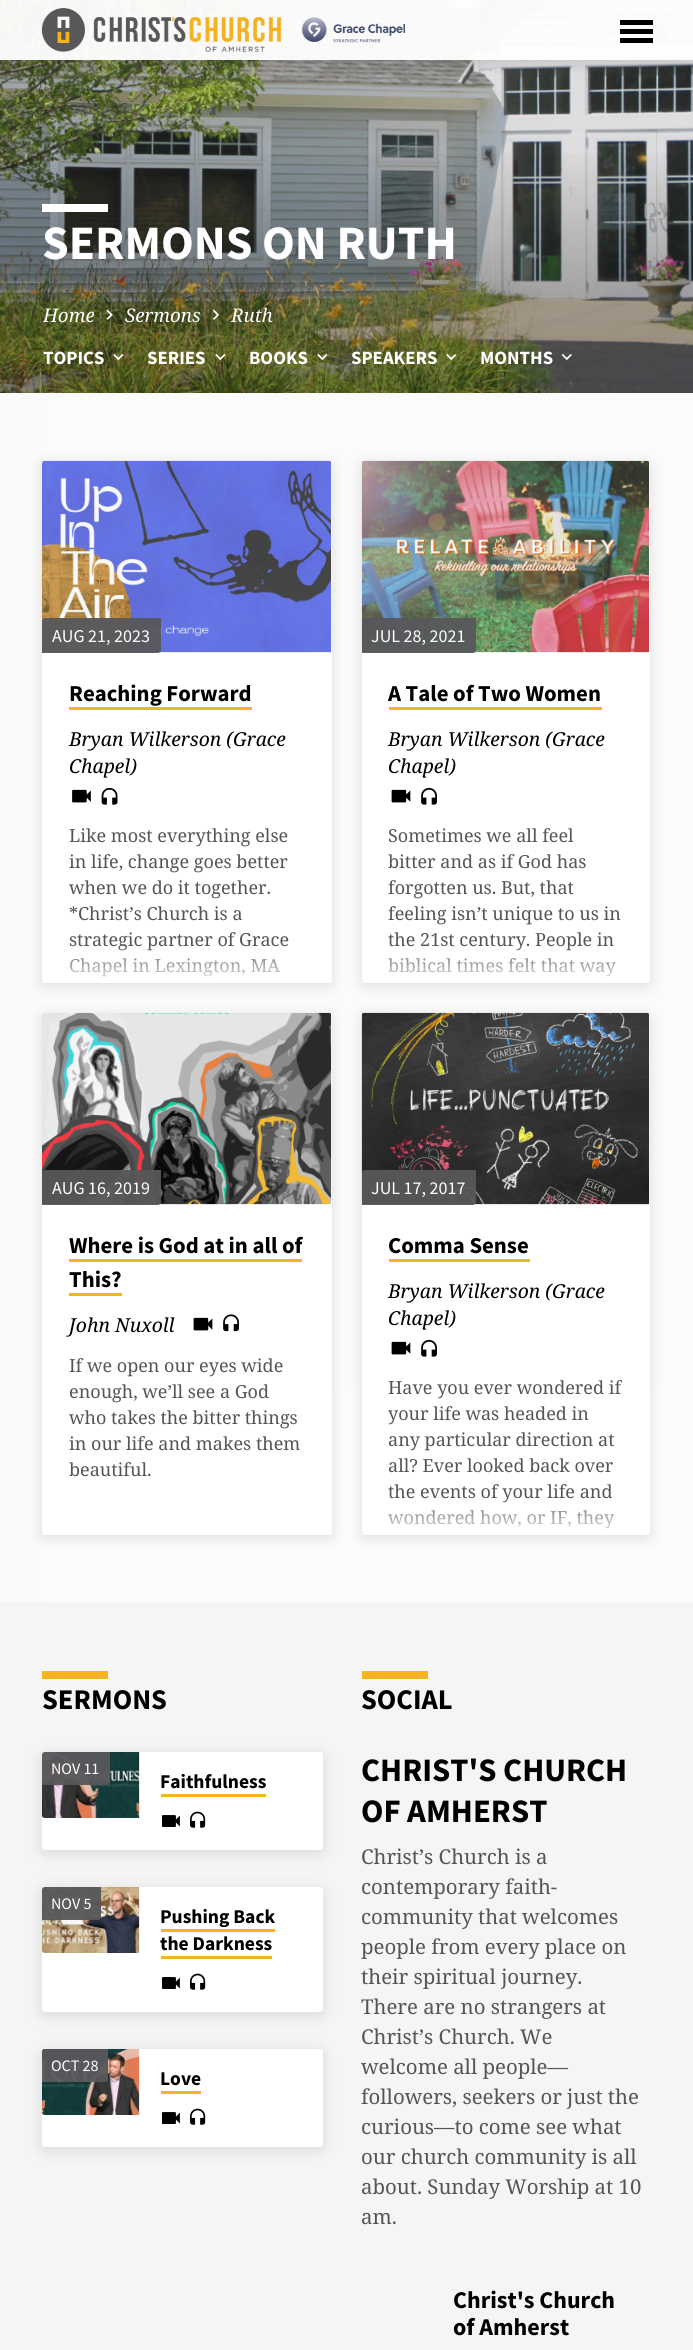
#include <cairo.h>
#include <math.h>
#include <stddef.h>


static void set_color(cairo_t *cr, unsigned color) {
    cairo_set_source_rgb(cr, (color >> 16) / 255.0, (color >> 8 & 255) / 255.0, (color & 255) / 255.0);
}

static void draw_text(cairo_t *cr, double x, double y, const char *s, const char *family, double size, int italic, int bold, unsigned color) {
    cairo_select_font_face(cr, family, italic ? CAIRO_FONT_SLANT_ITALIC : CAIRO_FONT_SLANT_NORMAL,
        bold ? CAIRO_FONT_WEIGHT_BOLD : CAIRO_FONT_WEIGHT_NORMAL);
    cairo_set_font_size(cr, size);
    set_color(cr, color);
    cairo_move_to(cr, x, y);
    cairo_show_text(cr, s);
}

static void fill_rect(cairo_t *cr, double x, double y, double w, double h, unsigned color) {
    set_color(cr, color);
    cairo_rectangle(cr, x, y, w, h);
    cairo_fill(cr);
}

static void rounded_rect(cairo_t *cr, double x, double y, double w, double h, double r) {
    cairo_new_sub_path(cr);
    cairo_arc(cr, x + w - r, y + h - r, r, 0, M_PI / 2);
    cairo_arc(cr, x + r, y + h - r, r, M_PI / 2, M_PI);
    cairo_arc(cr, x + r, y + r, r, M_PI, 1.5 * M_PI);
    cairo_arc(cr, x + w - r, y + r, r, 1.5 * M_PI, 2 * M_PI);
    cairo_close_path(cr);
}

static void draw_shadow(cairo_t *cr, double x, double y, double w, double h, double r, double blur, double alpha) {
    cairo_push_group_with_content(cr, CAIRO_CONTENT_ALPHA);
    cairo_set_operator(cr, CAIRO_OPERATOR_SOURCE);
    for (int i = 15; i >= -15 && fmin(w, h) + blur * i / 3 > 0; i -= 2) {
        double e = blur * i / 6;
        cairo_set_source_rgba(cr, 0, 0, 0, alpha * erfc((i - 1) / 8.5) / 2);
        rounded_rect(cr, x - e, y - e, w + 2 * e, h + 2 * e, fmax(0, fmin(r + e + blur * .6, fmin(w, h) / 2 + e)));
        cairo_fill(cr);
    }
    cairo_pattern_t *soft = cairo_pop_group(cr);
    cairo_mask(cr, soft);
    cairo_pattern_destroy(soft);
}

static void draw_image(cairo_t *cr, const char *path, double x, double y, double w, double h) {
    cairo_surface_t *image = cairo_image_surface_create_from_png(path);
    cairo_save(cr);
    cairo_set_source_surface(cr, image, x, y);
    cairo_rectangle(cr, x, y, w, h);
    cairo_fill(cr);
    cairo_restore(cr);
    cairo_surface_destroy(image);
}

int main(void) {
    cairo_surface_t *surface = cairo_image_surface_create(CAIRO_FORMAT_RGB24, 693, 2350);
    cairo_t *cr = cairo_create(surface);
    cairo_font_options_t *options = cairo_font_options_create();
    cairo_font_options_set_hint_metrics(options, CAIRO_HINT_METRICS_OFF);
    cairo_font_options_set_hint_style(options, CAIRO_HINT_STYLE_NONE);
    cairo_set_font_options(cr, options);
    cairo_set_miter_limit(cr, 4);
    cairo_pattern_t *gradient;
    set_color(cr, 0xFFFFFF);
    cairo_paint(cr);
    draw_image(cr, "assets/img2.png", 0, 0, 693, 393);
    cairo_set_source_rgba(cr, 1, 1, 1, 0.95);
    cairo_rectangle(cr, 0, 0, 693, 60);
    cairo_fill(cr);
    cairo_save(cr);
    cairo_rectangle(cr, 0, 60, 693, 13);
    cairo_clip(cr);
    set_color(cr, 0x000000);
    draw_shadow(cr, 0, 3, 693, 60, 0, 9, 0.14);
    cairo_restore(cr);
    draw_image(cr, "assets/img1.png", 41, 8, 364, 44);
    fill_rect(cr, 620, 20, 33, 5, 0x000000);
    fill_rect(cr, 620, 29, 33, 5, 0x000000);
    fill_rect(cr, 620, 38, 33, 5, 0x000000);
    gradient = cairo_pattern_create_linear(346, 0, 347, 393);
    cairo_pattern_add_color_stop_rgba(gradient, 0, 0, 0, 0, 0);
    cairo_pattern_add_color_stop_rgba(gradient, 0.36, 0, 0, 0, 0);
    cairo_pattern_add_color_stop_rgba(gradient, 0.76, 0, 0, 0, 0.28);
    cairo_pattern_add_color_stop_rgba(gradient, 1, 0, 0, 0, 0.28);
    cairo_set_source(cr, gradient);
    cairo_pattern_destroy(gradient);
    cairo_rectangle(cr, 0, 153, 693, 240);
    cairo_fill(cr);
    fill_rect(cr, 42, 204, 66, 8, 0xFFFFFF);
    draw_text(cr, 42, 259, "SERMONS ON RUTH", "Source Sans Pro", 48, 0, 1, 0xFFFFFF);
    draw_text(cr, 43, 322, "Home", "Noto Serif", 18.75, 1, 0, 0xFFFFFF);
    draw_image(cr, "assets/img3.png", 106, 309, 7, 11);
    draw_text(cr, 125, 322, "Sermons", "Noto Serif", 18.75, 1, 0, 0xFFFFFF);
    draw_image(cr, "assets/img4.png", 213, 309, 7, 11);
    draw_text(cr, 231, 322, "Ruth", "Noto Serif", 18.75, 1, 0, 0xFFFFFF);
    draw_text(cr, 43, 364, "TOPICS", "Source Sans Pro", 18.75, 0, 1, 0xFFFFFF);
    draw_image(cr, "assets/img5.png", 113, 353, 11, 8);
    draw_text(cr, 147, 364, "SERIES", "Source Sans Pro", 18.75, 0, 1, 0xFFFFFF);
    draw_image(cr, "assets/img6.png", 215, 353, 11, 8);
    draw_text(cr, 249, 364, "BOOKS", "Source Sans Pro", 18.75, 0, 1, 0xFFFFFF);
    draw_image(cr, "assets/img7.png", 317, 353, 11, 8);
    draw_text(cr, 351, 364, "SPEAKERS", "Source Sans Pro", 18.75, 0, 1, 0xFFFFFF);
    draw_image(cr, "assets/img8.png", 446, 353, 11, 8);
    draw_text(cr, 480, 364, "MONTHS", "Source Sans Pro", 18.75, 0, 1, 0xFFFFFF);
    draw_image(cr, "assets/img9.png", 561, 353, 11, 8);
    fill_rect(cr, 0, 393, 42, 1209, 0xFAFAFA);
    gradient = cairo_pattern_create_linear(389, 1602, 389, 393);
    cairo_pattern_add_color_stop_rgba(gradient, 0.12, 0.988, 0.988, 0.988, 1);
    cairo_pattern_add_color_stop_rgba(gradient, 0.25, 0.984, 0.984, 0.984, 1);
    cairo_set_source(cr, gradient);
    cairo_pattern_destroy(gradient);
    cairo_rectangle(cr, 42, 393, 651, 1209);
    cairo_fill(cr);
    set_color(cr, 0x000000);
    draw_shadow(cr, 42, 464, 290, 522, 3, 7.5, 0.12);
    set_color(cr, 0xFFFFFF);
    rounded_rect(cr, 42, 461, 290, 522, 3);
    cairo_fill(cr);
    draw_image(cr, "assets/img10.png", 42, 460, 290, 193);
    cairo_set_source_rgba(cr, 0.345, 0.345, 0.357, 0.95);
    cairo_new_path(cr);
    cairo_move_to(cr, 45, 618);
    cairo_line_to(cr, 161, 618);
    cairo_line_to(cr, 161, 650);
    cairo_curve_to(cr, 161, 651.5, 159.5, 653, 158, 653);
    cairo_line_to(cr, 42, 653);
    cairo_line_to(cr, 42, 621);
    cairo_curve_to(cr, 42, 619.5, 43.5, 618, 45, 618);
    cairo_close_path(cr);
    cairo_fill(cr);
    draw_text(cr, 52, 642, "AUG 21, 2023", "Source Sans Pro", 18, 0, 0, 0xFFFFFF);
    draw_text(cr, 69, 701, "Reaching Forward", "Source Sans Pro", 22.75, 0, 1, 0x000000);
    fill_rect(cr, 69, 707, 183, 3, 0xF6B221);
    draw_text(cr, 69, 746, "Bryan Wilkerson (Grace", "Noto Serif", 19.25, 1, 0, 0x000000);
    draw_text(cr, 69, 773, "Chapel)", "Noto Serif", 19.25, 1, 0, 0x000000);
    draw_image(cr, "assets/img11.png", 72, 789, 19, 14);
    draw_image(cr, "assets/img12.png", 101, 787, 17, 18);
    draw_text(cr, 69, 842, "Like most everything else", "Noto Serif", 18, 0, 0, 0x555555);
    draw_text(cr, 69, 868, "in life, change goes better", "Noto Serif", 18, 0, 0, 0x555555);
    draw_text(cr, 69, 894, "when we do it together.", "Noto Serif", 18, 0, 0, 0x555555);
    draw_text(cr, 69, 920, "*Christ’s Church is a", "Noto Serif", 18, 0, 0, 0x555555);
    draw_text(cr, 69, 946, "strategic partner of Grace", "Noto Serif", 18, 0, 0, 0x555555);
    draw_text(cr, 69, 972, "Chapel in Lexington, MA", "Noto Serif", 18, 0, 0, 0x555555);
    gradient = cairo_pattern_create_linear(187, 945, 187, 983);
    cairo_pattern_add_color_stop_rgba(gradient, 0, 1, 1, 1, 0);
    cairo_pattern_add_color_stop_rgba(gradient, 1, 1, 1, 1, 0.9);
    cairo_set_source(cr, gradient);
    cairo_pattern_destroy(gradient);
    cairo_new_path(cr);
    cairo_move_to(cr, 42, 945);
    cairo_line_to(cr, 332, 945);
    cairo_line_to(cr, 332, 980);
    cairo_curve_to(cr, 332, 981.5, 330.5, 983, 329, 983);
    cairo_line_to(cr, 45, 983);
    cairo_curve_to(cr, 43.5, 983, 42, 981.5, 42, 980);
    cairo_close_path(cr);
    cairo_fill(cr);
    set_color(cr, 0x000000);
    draw_shadow(cr, 362, 464, 288, 522, 3, 7.5, 0.12);
    set_color(cr, 0xFFFFFF);
    rounded_rect(cr, 362, 461, 288, 522, 3);
    cairo_fill(cr);
    draw_image(cr, "assets/img13.png", 361, 460, 289, 193);
    cairo_set_source_rgba(cr, 0.345, 0.345, 0.357, 0.95);
    cairo_new_path(cr);
    cairo_move_to(cr, 365, 618);
    cairo_line_to(cr, 476, 618);
    cairo_line_to(cr, 476, 650);
    cairo_curve_to(cr, 476, 651.5, 474.5, 653, 473, 653);
    cairo_line_to(cr, 362, 653);
    cairo_line_to(cr, 362, 621);
    cairo_curve_to(cr, 362, 619.5, 363.5, 618, 365, 618);
    cairo_close_path(cr);
    cairo_fill(cr);
    draw_text(cr, 371, 642, "JUL 28, 2021", "Source Sans Pro", 18, 0, 0, 0xFFFFFF);
    draw_text(cr, 388, 701, "A Tale of Two Women", "Source Sans Pro", 22.75, 0, 1, 0x000000);
    fill_rect(cr, 389, 707, 213, 3, 0xF6B221);
    draw_text(cr, 388, 746, "Bryan Wilkerson (Grace", "Noto Serif", 19.25, 1, 0, 0x000000);
    draw_text(cr, 388, 773, "Chapel)", "Noto Serif", 19.25, 1, 0, 0x000000);
    draw_image(cr, "assets/img14.png", 391, 789, 20, 14);
    draw_image(cr, "assets/img15.png", 421, 787, 16, 18);
    draw_text(cr, 388, 842, "Sometimes we all feel", "Noto Serif", 18, 0, 0, 0x555555);
    draw_text(cr, 388, 868, "bitter and as if God has", "Noto Serif", 18, 0, 0, 0x555555);
    draw_text(cr, 388, 894, "forgotten us. But, that", "Noto Serif", 18, 0, 0, 0x555555);
    draw_text(cr, 388, 920, "feeling isn’t unique to us in", "Noto Serif", 18, 0, 0, 0x555555);
    draw_text(cr, 388, 946, "the 21st century. People in", "Noto Serif", 18, 0, 0, 0x555555);
    draw_text(cr, 388, 972, "biblical times felt that way", "Noto Serif", 18, 0, 0, 0x555555);
    gradient = cairo_pattern_create_linear(506, 945, 506, 983);
    cairo_pattern_add_color_stop_rgba(gradient, 0, 1, 1, 1, 0);
    cairo_pattern_add_color_stop_rgba(gradient, 1, 1, 1, 1, 0.9);
    cairo_set_source(cr, gradient);
    cairo_pattern_destroy(gradient);
    cairo_new_path(cr);
    cairo_move_to(cr, 362, 945);
    cairo_line_to(cr, 650, 945);
    cairo_line_to(cr, 650, 980);
    cairo_curve_to(cr, 650, 981.5, 648.5, 983, 647, 983);
    cairo_line_to(cr, 365, 983);
    cairo_curve_to(cr, 363.5, 983, 362, 981.5, 362, 980);
    cairo_close_path(cr);
    cairo_fill(cr);
    set_color(cr, 0x000000);
    draw_shadow(cr, 42, 1016, 290, 522, 3, 7.5, 0.12);
    set_color(cr, 0xFFFFFF);
    rounded_rect(cr, 42, 1013, 290, 522, 3);
    cairo_fill(cr);
    draw_image(cr, "assets/img16.png", 42, 1012, 290, 193);
    cairo_set_source_rgba(cr, 0.345, 0.345, 0.357, 0.95);
    cairo_new_path(cr);
    cairo_move_to(cr, 45, 1170);
    cairo_line_to(cr, 161, 1170);
    cairo_line_to(cr, 161, 1202);
    cairo_curve_to(cr, 161, 1203.5, 159.5, 1205, 158, 1205);
    cairo_line_to(cr, 42, 1205);
    cairo_line_to(cr, 42, 1173);
    cairo_curve_to(cr, 42, 1171.5, 43.5, 1170, 45, 1170);
    cairo_close_path(cr);
    cairo_fill(cr);
    draw_text(cr, 52, 1194, "AUG 16, 2019", "Source Sans Pro", 18, 0, 0, 0xFFFFFF);
    draw_text(cr, 69, 1253, "Where is God at in all of", "Source Sans Pro", 22.75, 0, 1, 0x000000);
    fill_rect(cr, 69, 1259, 233, 3, 0xF6B221);
    draw_text(cr, 69, 1287, "This?", "Source Sans Pro", 22.75, 0, 1, 0x000000);
    fill_rect(cr, 69, 1293, 53, 3, 0xF6B221);
    draw_text(cr, 69, 1332, "John Nuxoll", "Noto Serif", 19.25, 1, 0, 0x000000);
    draw_image(cr, "assets/img14.png", 193, 1317, 20, 14);
    draw_image(cr, "assets/img17.png", 223, 1314, 16, 18);
    draw_text(cr, 69, 1372, "If we open our eyes wide", "Noto Serif", 18, 0, 0, 0x555555);
    draw_text(cr, 69, 1398, "enough, we’ll see a God", "Noto Serif", 18, 0, 0, 0x555555);
    draw_text(cr, 69, 1424, "who takes the bitter things", "Noto Serif", 18, 0, 0, 0x555555);
    draw_text(cr, 69, 1450, "in our life and makes them", "Noto Serif", 18, 0, 0, 0x555555);
    draw_text(cr, 69, 1476, "beautiful.", "Noto Serif", 18, 0, 0, 0x555555);
    gradient = cairo_pattern_create_linear(187, 1497, 187, 1535);
    cairo_pattern_add_color_stop_rgba(gradient, 0, 1, 1, 1, 0);
    cairo_pattern_add_color_stop_rgba(gradient, 1, 1, 1, 1, 0.9);
    cairo_set_source(cr, gradient);
    cairo_pattern_destroy(gradient);
    cairo_new_path(cr);
    cairo_move_to(cr, 42, 1497);
    cairo_line_to(cr, 332, 1497);
    cairo_line_to(cr, 332, 1532);
    cairo_curve_to(cr, 332, 1533.5, 330.5, 1535, 329, 1535);
    cairo_line_to(cr, 45, 1535);
    cairo_curve_to(cr, 43.5, 1535, 42, 1533.5, 42, 1532);
    cairo_close_path(cr);
    cairo_fill(cr);
    set_color(cr, 0x000000);
    draw_shadow(cr, 362, 1016, 288, 522, 3, 7.5, 0.12);
    set_color(cr, 0xFFFFFF);
    rounded_rect(cr, 362, 1013, 288, 522, 3);
    cairo_fill(cr);
    draw_image(cr, "assets/img18.png", 361, 1012, 289, 193);
    cairo_set_source_rgba(cr, 0.345, 0.345, 0.357, 0.95);
    cairo_new_path(cr);
    cairo_move_to(cr, 365, 1170);
    cairo_line_to(cr, 476, 1170);
    cairo_line_to(cr, 476, 1202);
    cairo_curve_to(cr, 476, 1203.5, 474.5, 1205, 473, 1205);
    cairo_line_to(cr, 362, 1205);
    cairo_line_to(cr, 362, 1173);
    cairo_curve_to(cr, 362, 1171.5, 363.5, 1170, 365, 1170);
    cairo_close_path(cr);
    cairo_fill(cr);
    draw_text(cr, 371, 1194, "JUL 17, 2017", "Source Sans Pro", 18, 0, 0, 0xFFFFFF);
    draw_text(cr, 388, 1253, "Comma Sense", "Source Sans Pro", 22.75, 0, 1, 0x000000);
    fill_rect(cr, 389, 1259, 141, 3, 0xF6B221);
    draw_text(cr, 388, 1298, "Bryan Wilkerson (Grace", "Noto Serif", 19.25, 1, 0, 0x000000);
    draw_text(cr, 388, 1325, "Chapel)", "Noto Serif", 19.25, 1, 0, 0x000000);
    draw_image(cr, "assets/img14.png", 391, 1341, 20, 14);
    draw_image(cr, "assets/img15.png", 421, 1339, 16, 18);
    draw_text(cr, 388, 1394, "Have you ever wondered if", "Noto Serif", 18, 0, 0, 0x555555);
    draw_text(cr, 388, 1420, "your life was headed in", "Noto Serif", 18, 0, 0, 0x555555);
    draw_text(cr, 388, 1446, "any particular direction at", "Noto Serif", 18, 0, 0, 0x555555);
    draw_text(cr, 388, 1472, "all? Ever looked back over", "Noto Serif", 18, 0, 0, 0x555555);
    draw_text(cr, 388, 1498, "the events of your life and", "Noto Serif", 18, 0, 0, 0x555555);
    draw_text(cr, 388, 1524, "wondered how, or IF, they", "Noto Serif", 18, 0, 0, 0x555555);
    gradient = cairo_pattern_create_linear(506, 1497, 506, 1535);
    cairo_pattern_add_color_stop_rgba(gradient, 0, 1, 1, 1, 0);
    cairo_pattern_add_color_stop_rgba(gradient, 1, 1, 1, 1, 0.9);
    cairo_set_source(cr, gradient);
    cairo_pattern_destroy(gradient);
    cairo_new_path(cr);
    cairo_move_to(cr, 362, 1497);
    cairo_line_to(cr, 650, 1497);
    cairo_line_to(cr, 650, 1532);
    cairo_curve_to(cr, 650, 1533.5, 648.5, 1535, 647, 1535);
    cairo_line_to(cr, 365, 1535);
    cairo_curve_to(cr, 363.5, 1535, 362, 1533.5, 362, 1532);
    cairo_close_path(cr);
    cairo_fill(cr);
    fill_rect(cr, 0, 1602, 693, 748, 0xF5F5F5);
    fill_rect(cr, 42, 1671, 66, 8, 0xF6B221);
    draw_text(cr, 42, 1709, "SERMONS", "Source Sans Pro", 28.5, 0, 1, 0x000000);
    set_color(cr, 0x000000);
    draw_shadow(cr, 42, 1755, 281, 98, 3, 7.5, 0.12);
    set_color(cr, 0xFFFFFF);
    rounded_rect(cr, 42, 1752, 281, 98, 3);
    cairo_fill(cr);
    draw_image(cr, "assets/img19.png", 42, 1752, 98, 66);
    cairo_set_source_rgba(cr, 0.345, 0.345, 0.357, 0.95);
    cairo_new_path(cr);
    cairo_move_to(cr, 45, 1752);
    cairo_line_to(cr, 110, 1752);
    cairo_line_to(cr, 110, 1782);
    cairo_curve_to(cr, 110, 1783.5, 108.5, 1785, 107, 1785);
    cairo_line_to(cr, 42, 1785);
    cairo_line_to(cr, 42, 1755);
    cairo_curve_to(cr, 42, 1753.5, 43.5, 1752, 45, 1752);
    cairo_close_path(cr);
    cairo_fill(cr);
    draw_text(cr, 51, 1774, "NOV 11", "Source Sans Pro", 16, 0, 0, 0xFFFFFF);
    draw_text(cr, 160, 1788, "Faithfulness", "Source Sans Pro", 19.5, 0, 1, 0x000000);
    fill_rect(cr, 161, 1794, 105, 3, 0xF6B221);
    draw_image(cr, "assets/img20.png", 162, 1815, 18, 12);
    draw_image(cr, "assets/img21.png", 190, 1811, 16, 17);
    set_color(cr, 0x000000);
    draw_shadow(cr, 42, 1890, 281, 125, 3, 7.5, 0.12);
    set_color(cr, 0xFFFFFF);
    rounded_rect(cr, 42, 1887, 281, 125, 3);
    cairo_fill(cr);
    draw_image(cr, "assets/img22.png", 42, 1887, 98, 66);
    cairo_set_source_rgba(cr, 0.345, 0.345, 0.357, 0.95);
    cairo_new_path(cr);
    cairo_move_to(cr, 45, 1887);
    cairo_line_to(cr, 101, 1887);
    cairo_line_to(cr, 101, 1917);
    cairo_curve_to(cr, 101, 1918.5, 99.5, 1920, 98, 1920);
    cairo_line_to(cr, 42, 1920);
    cairo_line_to(cr, 42, 1890);
    cairo_curve_to(cr, 42, 1888.5, 43.5, 1887, 45, 1887);
    cairo_close_path(cr);
    cairo_fill(cr);
    draw_text(cr, 51, 1909, "NOV 5", "Source Sans Pro", 16, 0, 0, 0xFFFFFF);
    draw_text(cr, 160, 1923, "Pushing Back", "Source Sans Pro", 19.5, 0, 1, 0x000000);
    fill_rect(cr, 161, 1929, 114, 3, 0xF6B221);
    draw_text(cr, 160, 1950, "the Darkness", "Source Sans Pro", 19.5, 0, 1, 0x000000);
    fill_rect(cr, 161, 1956, 111, 3, 0xF6B221);
    draw_image(cr, "assets/img20.png", 162, 1977, 18, 12);
    draw_image(cr, "assets/img21.png", 190, 1973, 16, 17);
    set_color(cr, 0x000000);
    draw_shadow(cr, 42, 2052, 281, 98, 3, 7.5, 0.12);
    set_color(cr, 0xFFFFFF);
    rounded_rect(cr, 42, 2049, 281, 98, 3);
    cairo_fill(cr);
    draw_image(cr, "assets/img23.png", 42, 2049, 98, 66);
    cairo_set_source_rgba(cr, 0.345, 0.345, 0.357, 0.95);
    cairo_new_path(cr);
    cairo_move_to(cr, 45, 2049);
    cairo_line_to(cr, 108, 2049);
    cairo_line_to(cr, 108, 2079);
    cairo_curve_to(cr, 108, 2080.5, 106.5, 2082, 105, 2082);
    cairo_line_to(cr, 42, 2082);
    cairo_line_to(cr, 42, 2052);
    cairo_curve_to(cr, 42, 2050.5, 43.5, 2049, 45, 2049);
    cairo_close_path(cr);
    cairo_fill(cr);
    draw_text(cr, 51, 2071, "OCT 28", "Source Sans Pro", 16, 0, 0, 0xFFFFFF);
    draw_text(cr, 160, 2085, "Love", "Source Sans Pro", 19.5, 0, 1, 0x000000);
    fill_rect(cr, 161, 2091, 40, 3, 0xF6B221);
    draw_image(cr, "assets/img20.png", 162, 2112, 18, 12);
    draw_image(cr, "assets/img21.png", 190, 2108, 16, 17);
    fill_rect(cr, 362, 1671, 66, 8, 0xF6B221);
    draw_text(cr, 361, 1709, "SOCIAL", "Source Sans Pro", 28.5, 0, 1, 0x000000);
    draw_text(cr, 361, 1781, "CHRIST'S CHURCH", "Source Sans Pro", 32.75, 0, 1, 0x000000);
    draw_text(cr, 361, 1822, "OF AMHERST", "Source Sans Pro", 32.75, 0, 1, 0x000000);
    draw_text(cr, 361, 1864, "Christ’s Church is a", "Noto Serif", 20.4, 0, 0, 0x555555);
    draw_text(cr, 361, 1894, "contemporary faith-", "Noto Serif", 20.4, 0, 0, 0x555555);
    draw_text(cr, 361, 1924, "community that welcomes", "Noto Serif", 20.4, 0, 0, 0x555555);
    draw_text(cr, 361, 1954, "people from every place on", "Noto Serif", 20.4, 0, 0, 0x555555);
    draw_text(cr, 361, 1984, "their spiritual journey.", "Noto Serif", 20.4, 0, 0, 0x555555);
    draw_text(cr, 361, 2014, "There are no strangers at", "Noto Serif", 20.4, 0, 0, 0x555555);
    draw_text(cr, 361, 2044, "Christ’s Church. We", "Noto Serif", 20.4, 0, 0, 0x555555);
    draw_text(cr, 361, 2074, "welcome all people—", "Noto Serif", 20.4, 0, 0, 0x555555);
    draw_text(cr, 361, 2104, "followers, seekers or just the", "Noto Serif", 20.4, 0, 0, 0x555555);
    draw_text(cr, 361, 2134, "curious—to come see what", "Noto Serif", 20.4, 0, 0, 0x555555);
    draw_text(cr, 361, 2164, "our church community is all", "Noto Serif", 20.4, 0, 0, 0x555555);
    draw_text(cr, 361, 2194, "about. Sunday Worship at 10", "Noto Serif", 20.4, 0, 0, 0x555555);
    draw_text(cr, 361, 2224, "am.", "Noto Serif", 20.4, 0, 0, 0x555555);
    draw_text(cr, 453, 2308, "Christ's Church", "Source Sans Pro", 24, 0, 1, 0x000000);
    draw_text(cr, 453, 2335, "of Amherst", "Source Sans Pro", 24, 0, 1, 0x000000);
    cairo_surface_write_to_png(surface, "output.png");
    cairo_font_options_destroy(options);
    cairo_destroy(cr);
    cairo_surface_destroy(surface);
    return 0;
}
